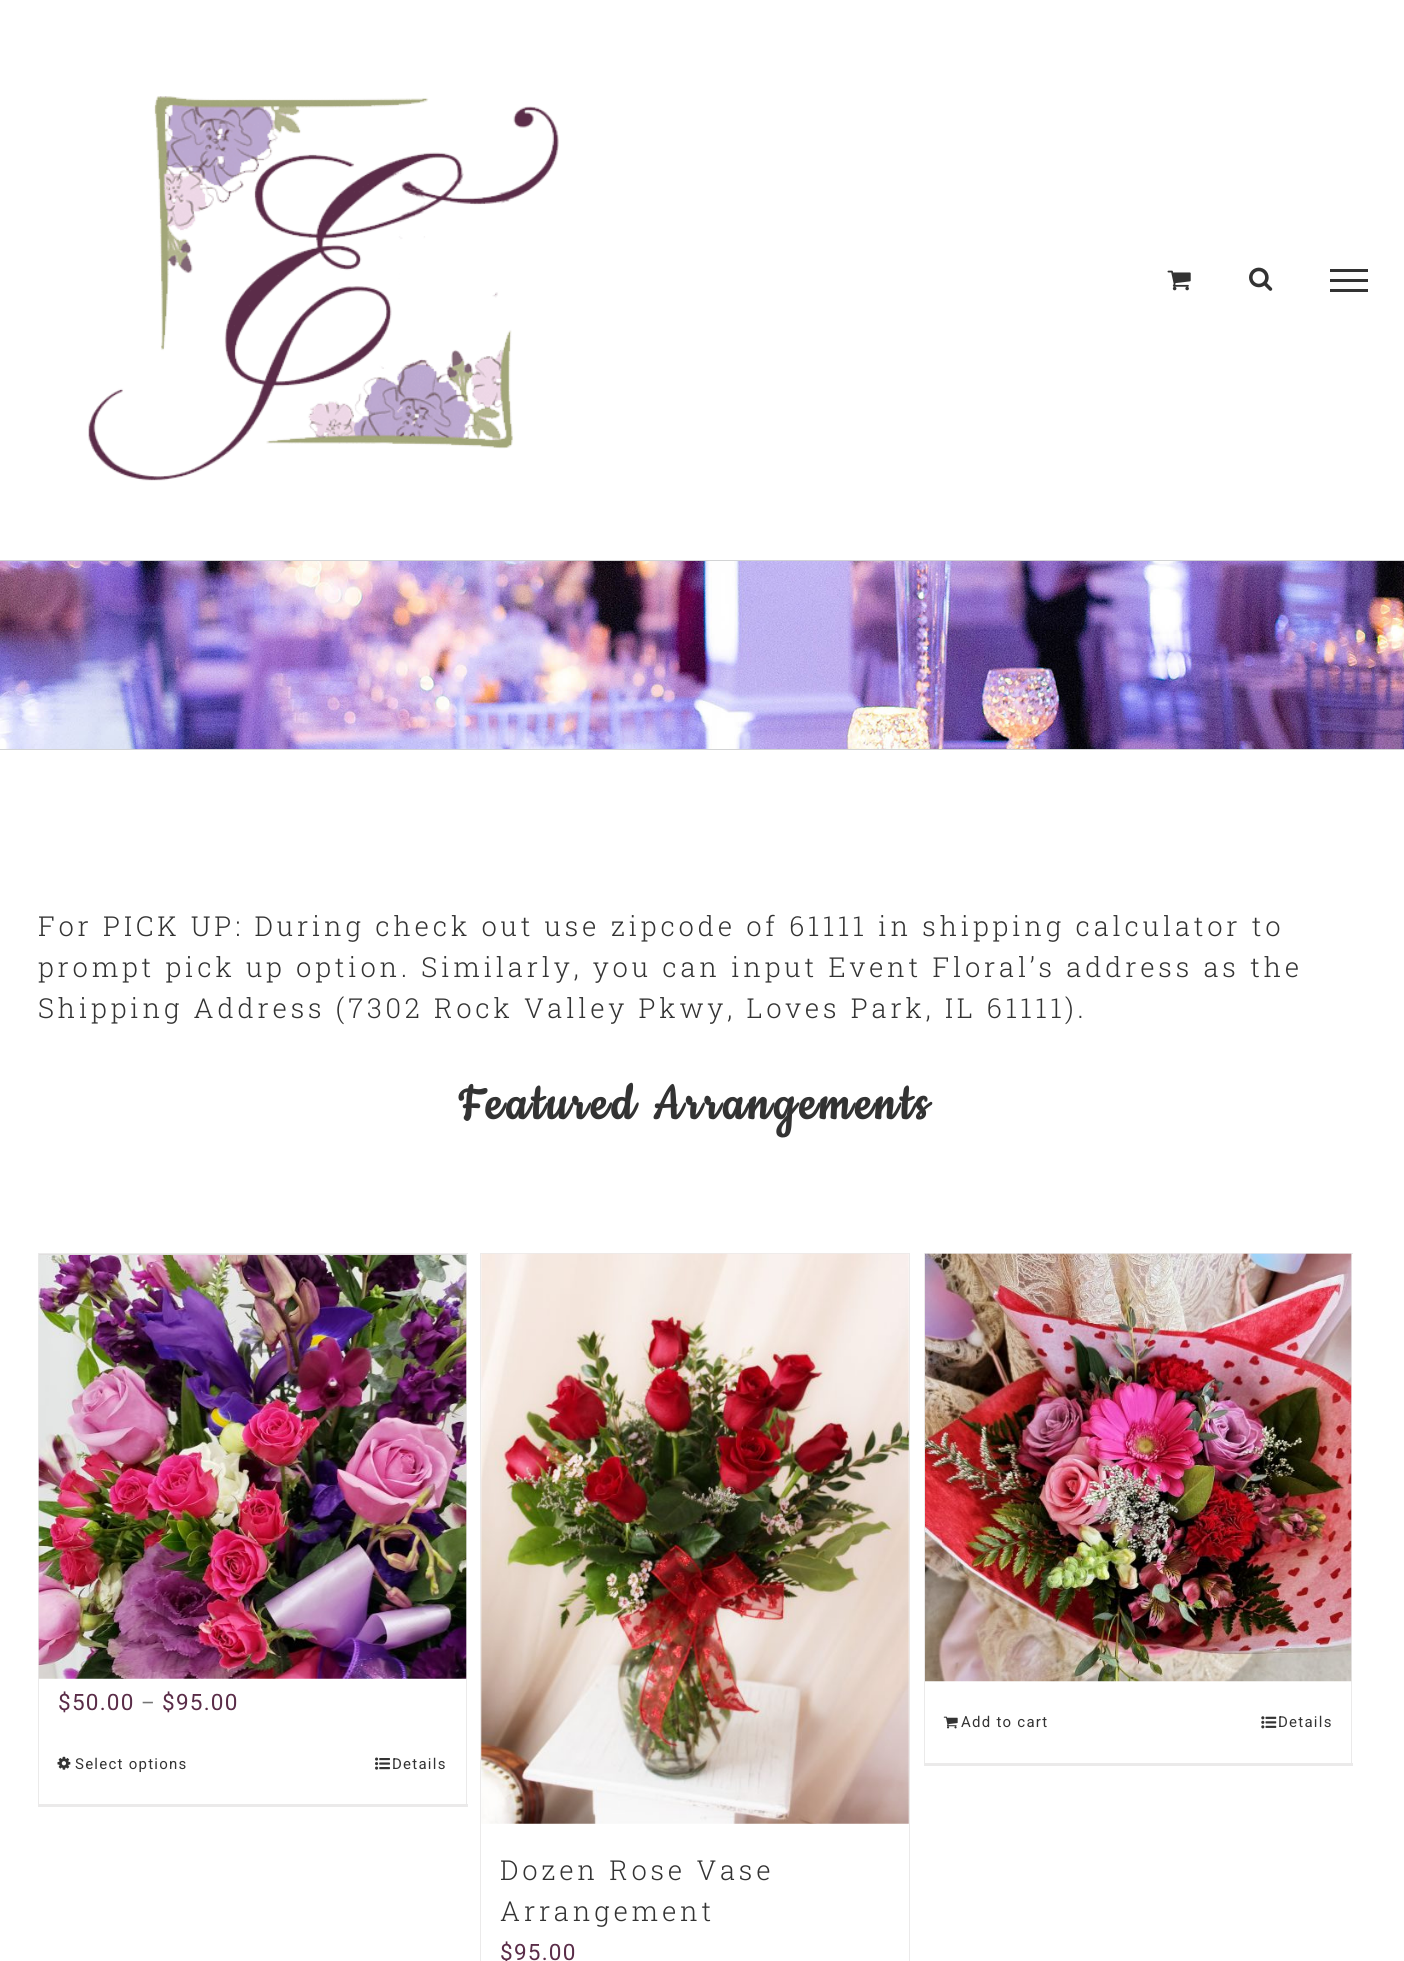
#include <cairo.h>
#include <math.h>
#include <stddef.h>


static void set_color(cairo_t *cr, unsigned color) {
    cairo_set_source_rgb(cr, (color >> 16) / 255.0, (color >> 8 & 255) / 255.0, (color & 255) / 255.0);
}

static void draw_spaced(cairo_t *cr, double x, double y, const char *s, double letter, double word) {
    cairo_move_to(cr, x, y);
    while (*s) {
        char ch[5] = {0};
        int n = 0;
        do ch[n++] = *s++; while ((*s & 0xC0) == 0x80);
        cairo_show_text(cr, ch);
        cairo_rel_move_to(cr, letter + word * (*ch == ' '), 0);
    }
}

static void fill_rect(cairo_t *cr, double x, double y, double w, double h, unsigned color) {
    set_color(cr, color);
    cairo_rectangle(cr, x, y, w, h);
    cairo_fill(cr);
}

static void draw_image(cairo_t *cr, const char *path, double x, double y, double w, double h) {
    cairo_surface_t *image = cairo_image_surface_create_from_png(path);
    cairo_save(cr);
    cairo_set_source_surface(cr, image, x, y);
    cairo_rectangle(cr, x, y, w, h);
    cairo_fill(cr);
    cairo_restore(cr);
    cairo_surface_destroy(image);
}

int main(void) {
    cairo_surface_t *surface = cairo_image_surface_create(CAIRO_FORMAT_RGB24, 1404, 1961);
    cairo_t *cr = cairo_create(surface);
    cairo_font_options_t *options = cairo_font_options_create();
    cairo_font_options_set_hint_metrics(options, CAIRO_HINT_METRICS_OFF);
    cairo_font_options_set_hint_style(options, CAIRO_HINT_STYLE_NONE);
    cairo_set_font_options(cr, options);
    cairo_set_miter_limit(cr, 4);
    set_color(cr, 0xFFFFFF);
    cairo_paint(cr);
    draw_image(cr, "assets/img1.png", 88, 96, 471, 385);
    draw_image(cr, "assets/img2.png", 1167, 270, 24, 21);
    draw_image(cr, "assets/img3.png", 1249, 267, 24, 24);
    fill_rect(cr, 1330, 269, 38, 3, 0x333333);
    fill_rect(cr, 1330, 279, 38, 3, 0x333333);
    fill_rect(cr, 1330, 289, 38, 3, 0x333333);
    draw_image(cr, "assets/img4.png", 0, 561, 1404, 188);
    fill_rect(cr, 0, 560, 1404, 1, 0xD2D3D4);
    fill_rect(cr, 0, 749, 1404, 1, 0xD2D3D4);
    cairo_select_font_face(cr, "Roboto Slab Light", CAIRO_FONT_SLANT_NORMAL, CAIRO_FONT_WEIGHT_NORMAL);
    cairo_set_font_size(cr, 27.5);
    set_color(cr, 0x333333);
    draw_spaced(cr, 38, 936, "For PICK UP: During check out use zipcode of 61111 in shipping calculator to", 3.75, 0);
    draw_spaced(cr, 38, 977, "prompt pick up option. Similarly, you can input Event Floral’s address as the", 3.75, 0);
    draw_spaced(cr, 38, 1018, "Shipping Address (7302 Rock Valley Pkwy, Loves Park, IL 61111).", 3.75, 0);
    cairo_select_font_face(cr, "Cookie", CAIRO_FONT_SLANT_NORMAL, CAIRO_FONT_WEIGHT_BOLD);
    cairo_set_font_size(cr, 57.75);
    draw_spaced(cr, 458, 1119, "Featured Arrangements", 3.75, 0);
    fill_rect(cr, 38, 1253, 430, 1, 0xEBEAEA);
    fill_rect(cr, 466, 1253, 1, 553, 0xEBEAEA);
    fill_rect(cr, 38, 1804, 430, 3, 0xEBEAEA);
    fill_rect(cr, 38, 1253, 1, 553, 0xEBEAEA);
    fill_rect(cr, 39, 1254, 427, 1, 0xE0DEDE);
    draw_image(cr, "assets/img5.png", 38, 1255, 429, 424);
    cairo_select_font_face(cr, "Roboto", CAIRO_FONT_SLANT_NORMAL, CAIRO_FONT_WEIGHT_NORMAL);
    cairo_set_font_size(cr, 22.5);
    set_color(cr, 0x5A2C48);
    draw_spaced(cr, 58, 1710, "$50.00", 1.25, 0);
    cairo_set_font_size(cr, 21);
    set_color(cr, 0x747474);
    draw_spaced(cr, 141, 1710, "–", 1.25, 0);
    cairo_set_font_size(cr, 22.5);
    set_color(cr, 0x5A2C48);
    draw_spaced(cr, 162, 1710, "$95.00", 1.25, 0);
    draw_image(cr, "assets/img6.png", 57, 1756, 14, 14);
    cairo_set_font_size(cr, 15);
    set_color(cr, 0x333333);
    draw_spaced(cr, 75, 1769, "Select options", 1.25, 0);
    draw_image(cr, "assets/img7.png", 375, 1757, 15, 13);
    draw_spaced(cr, 392, 1769, "Details", 1.25, 0);
    fill_rect(cr, 924, 1253, 429, 1, 0xEBEAEA);
    fill_rect(cr, 1351, 1253, 1, 512, 0xEBEAEA);
    fill_rect(cr, 924, 1763, 429, 3, 0xEBEAEA);
    fill_rect(cr, 924, 1253, 1, 512, 0xEBEAEA);
    draw_image(cr, "assets/img8.png", 925, 1253, 427, 429);
    draw_image(cr, "assets/img9.png", 943, 1716, 15, 13);
    set_color(cr, 0x333333);
    draw_spaced(cr, 961, 1727, "Add to cart", 1.25, 0);
    draw_image(cr, "assets/img10.png", 1261, 1716, 16, 13);
    draw_spaced(cr, 1278, 1727, "Details", 1.25, 0);
    fill_rect(cr, 480, 1253, 430, 1, 0xEBEAEA);
    fill_rect(cr, 909, 1253, 1, 708, 0xEBEAEA);
    fill_rect(cr, 480, 1253, 1, 708, 0xEBEAEA);
    draw_image(cr, "assets/img11.png", 481, 1253, 428, 571);
    cairo_select_font_face(cr, "Roboto Slab Light", CAIRO_FONT_SLANT_NORMAL, CAIRO_FONT_WEIGHT_NORMAL);
    cairo_set_font_size(cr, 27.5);
    set_color(cr, 0x333333);
    draw_spaced(cr, 500, 1880, "Dozen Rose Vase", 3.75, 0);
    draw_spaced(cr, 500, 1921, "Arrangement", 3.75, 0);
    cairo_select_font_face(cr, "Roboto", CAIRO_FONT_SLANT_NORMAL, CAIRO_FONT_WEIGHT_NORMAL);
    cairo_set_font_size(cr, 22.5);
    set_color(cr, 0x5A2C48);
    draw_spaced(cr, 500, 1960, "$95.00", 1.25, 0);
    cairo_surface_write_to_png(surface, "output.png");
    cairo_font_options_destroy(options);
    cairo_destroy(cr);
    cairo_surface_destroy(surface);
    return 0;
}
